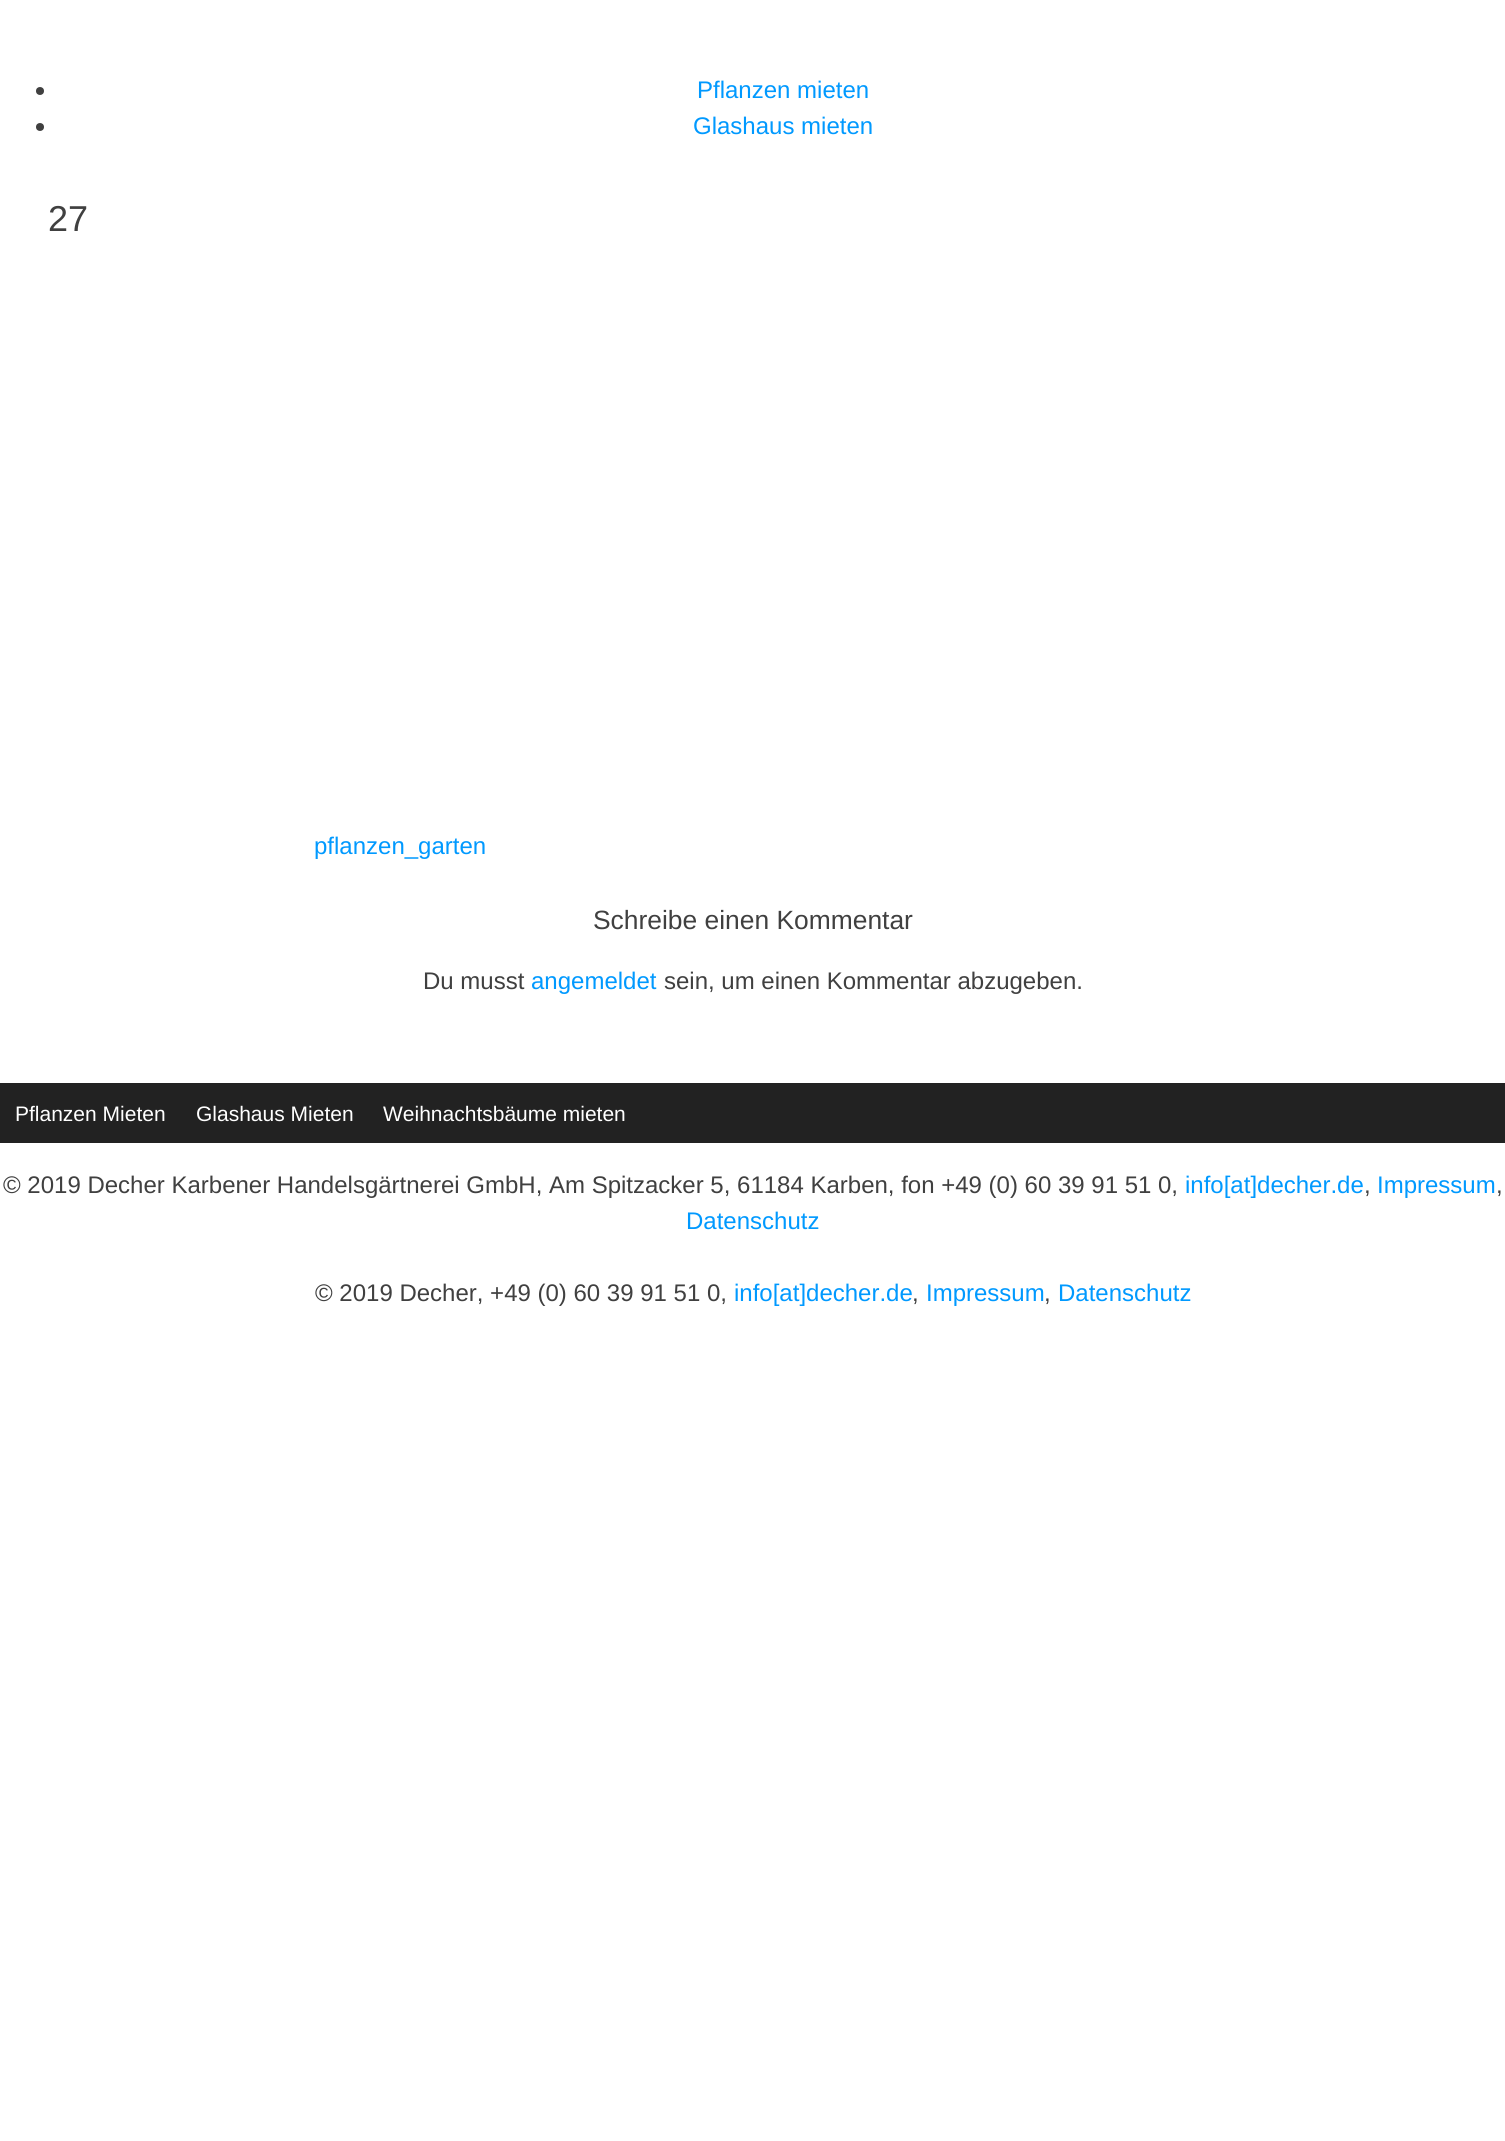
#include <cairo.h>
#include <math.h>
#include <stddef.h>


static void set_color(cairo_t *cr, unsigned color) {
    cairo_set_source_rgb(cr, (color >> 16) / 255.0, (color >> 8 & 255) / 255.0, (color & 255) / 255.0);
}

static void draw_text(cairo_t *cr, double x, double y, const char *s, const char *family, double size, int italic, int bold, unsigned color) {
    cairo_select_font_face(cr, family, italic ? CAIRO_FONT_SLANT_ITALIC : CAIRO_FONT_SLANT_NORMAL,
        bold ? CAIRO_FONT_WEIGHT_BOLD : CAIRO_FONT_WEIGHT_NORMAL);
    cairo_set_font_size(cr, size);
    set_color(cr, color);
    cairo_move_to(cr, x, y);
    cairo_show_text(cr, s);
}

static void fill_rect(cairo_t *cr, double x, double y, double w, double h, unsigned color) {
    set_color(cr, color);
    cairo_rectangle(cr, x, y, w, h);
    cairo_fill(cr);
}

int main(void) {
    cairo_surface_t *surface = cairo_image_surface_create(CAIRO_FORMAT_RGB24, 1505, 2141);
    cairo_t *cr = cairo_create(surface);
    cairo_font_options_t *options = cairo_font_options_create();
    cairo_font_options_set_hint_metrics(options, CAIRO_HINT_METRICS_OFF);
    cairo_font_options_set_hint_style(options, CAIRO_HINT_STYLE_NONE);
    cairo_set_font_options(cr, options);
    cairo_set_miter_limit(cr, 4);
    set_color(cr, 0xFFFFFF);
    cairo_paint(cr);
    set_color(cr, 0x404040);
    cairo_arc(cr, 40, 91, 4, 0, 2 * M_PI);
    cairo_fill(cr);
    draw_text(cr, 697, 98, "Pflanzen mieten", "Liberation Sans", 24, 0, 0, 0x0099FF);
    set_color(cr, 0x404040);
    cairo_new_path(cr);
    cairo_arc(cr, 40, 127, 4, 0, 2 * M_PI);
    cairo_fill(cr);
    draw_text(cr, 693, 134, "Glashaus mieten", "Liberation Sans", 24, 0, 0, 0x0099FF);
    draw_text(cr, 48, 231, "27", "Liberation Sans", 36, 0, 0, 0x404040);
    draw_text(cr, 314, 854, "pflanzen_garten", "Liberation Sans", 24, 0, 0, 0x0099FF);
    draw_text(cr, 593, 929, "Schreibe einen Kommentar", "Liberation Sans", 26.4, 0, 0, 0x404040);
    draw_text(cr, 423, 989, "Du musst", "Liberation Sans", 24, 0, 0, 0x404040);
    draw_text(cr, 531, 989, "angemeldet", "Liberation Sans", 24, 0, 0, 0x0099FF);
    draw_text(cr, 664, 989, "sein, um einen Kommentar abzugeben.", "Liberation Sans", 24, 0, 0, 0x404040);
    fill_rect(cr, 0, 1083, 1505, 60, 0x222222);
    draw_text(cr, 15, 1121, "Pflanzen Mieten", "Liberation Sans", 21, 0, 0, 0xFFFFFF);
    draw_text(cr, 196, 1121, "Glashaus Mieten", "Liberation Sans", 21, 0, 0, 0xFFFFFF);
    draw_text(cr, 383, 1121, "Weihnachtsbäume mieten", "Liberation Sans", 21, 0, 0, 0xFFFFFF);
    draw_text(cr, 3, 1193, "© 2019 Decher Karbener Handelsgärtnerei GmbH, Am Spitzacker 5, 61184 Karben, fon +49 (0) 60 39 91 51 0,", "Liberation Sans", 24, 0, 0, 0x404040);
    draw_text(cr, 1185, 1193, "info[at]decher.de", "Liberation Sans", 24, 0, 0, 0x0099FF);
    draw_text(cr, 1364, 1193, ",", "Liberation Sans", 24, 0, 0, 0x404040);
    draw_text(cr, 1377, 1193, "Impressum", "Liberation Sans", 24, 0, 0, 0x0099FF);
    draw_text(cr, 1496, 1193, ",", "Liberation Sans", 24, 0, 0, 0x404040);
    draw_text(cr, 686, 1229, "Datenschutz", "Liberation Sans", 24, 0, 0, 0x0099FF);
    draw_text(cr, 315, 1301, "© 2019 Decher, +49 (0) 60 39 91 51 0,", "Liberation Sans", 24, 0, 0, 0x404040);
    draw_text(cr, 734, 1301, "info[at]decher.de", "Liberation Sans", 24, 0, 0, 0x0099FF);
    draw_text(cr, 912, 1301, ",", "Liberation Sans", 24, 0, 0, 0x404040);
    draw_text(cr, 926, 1301, "Impressum", "Liberation Sans", 24, 0, 0, 0x0099FF);
    draw_text(cr, 1044, 1301, ",", "Liberation Sans", 24, 0, 0, 0x404040);
    draw_text(cr, 1058, 1301, "Datenschutz", "Liberation Sans", 24, 0, 0, 0x0099FF);
    cairo_surface_write_to_png(surface, "output.png");
    cairo_font_options_destroy(options);
    cairo_destroy(cr);
    cairo_surface_destroy(surface);
    return 0;
}
